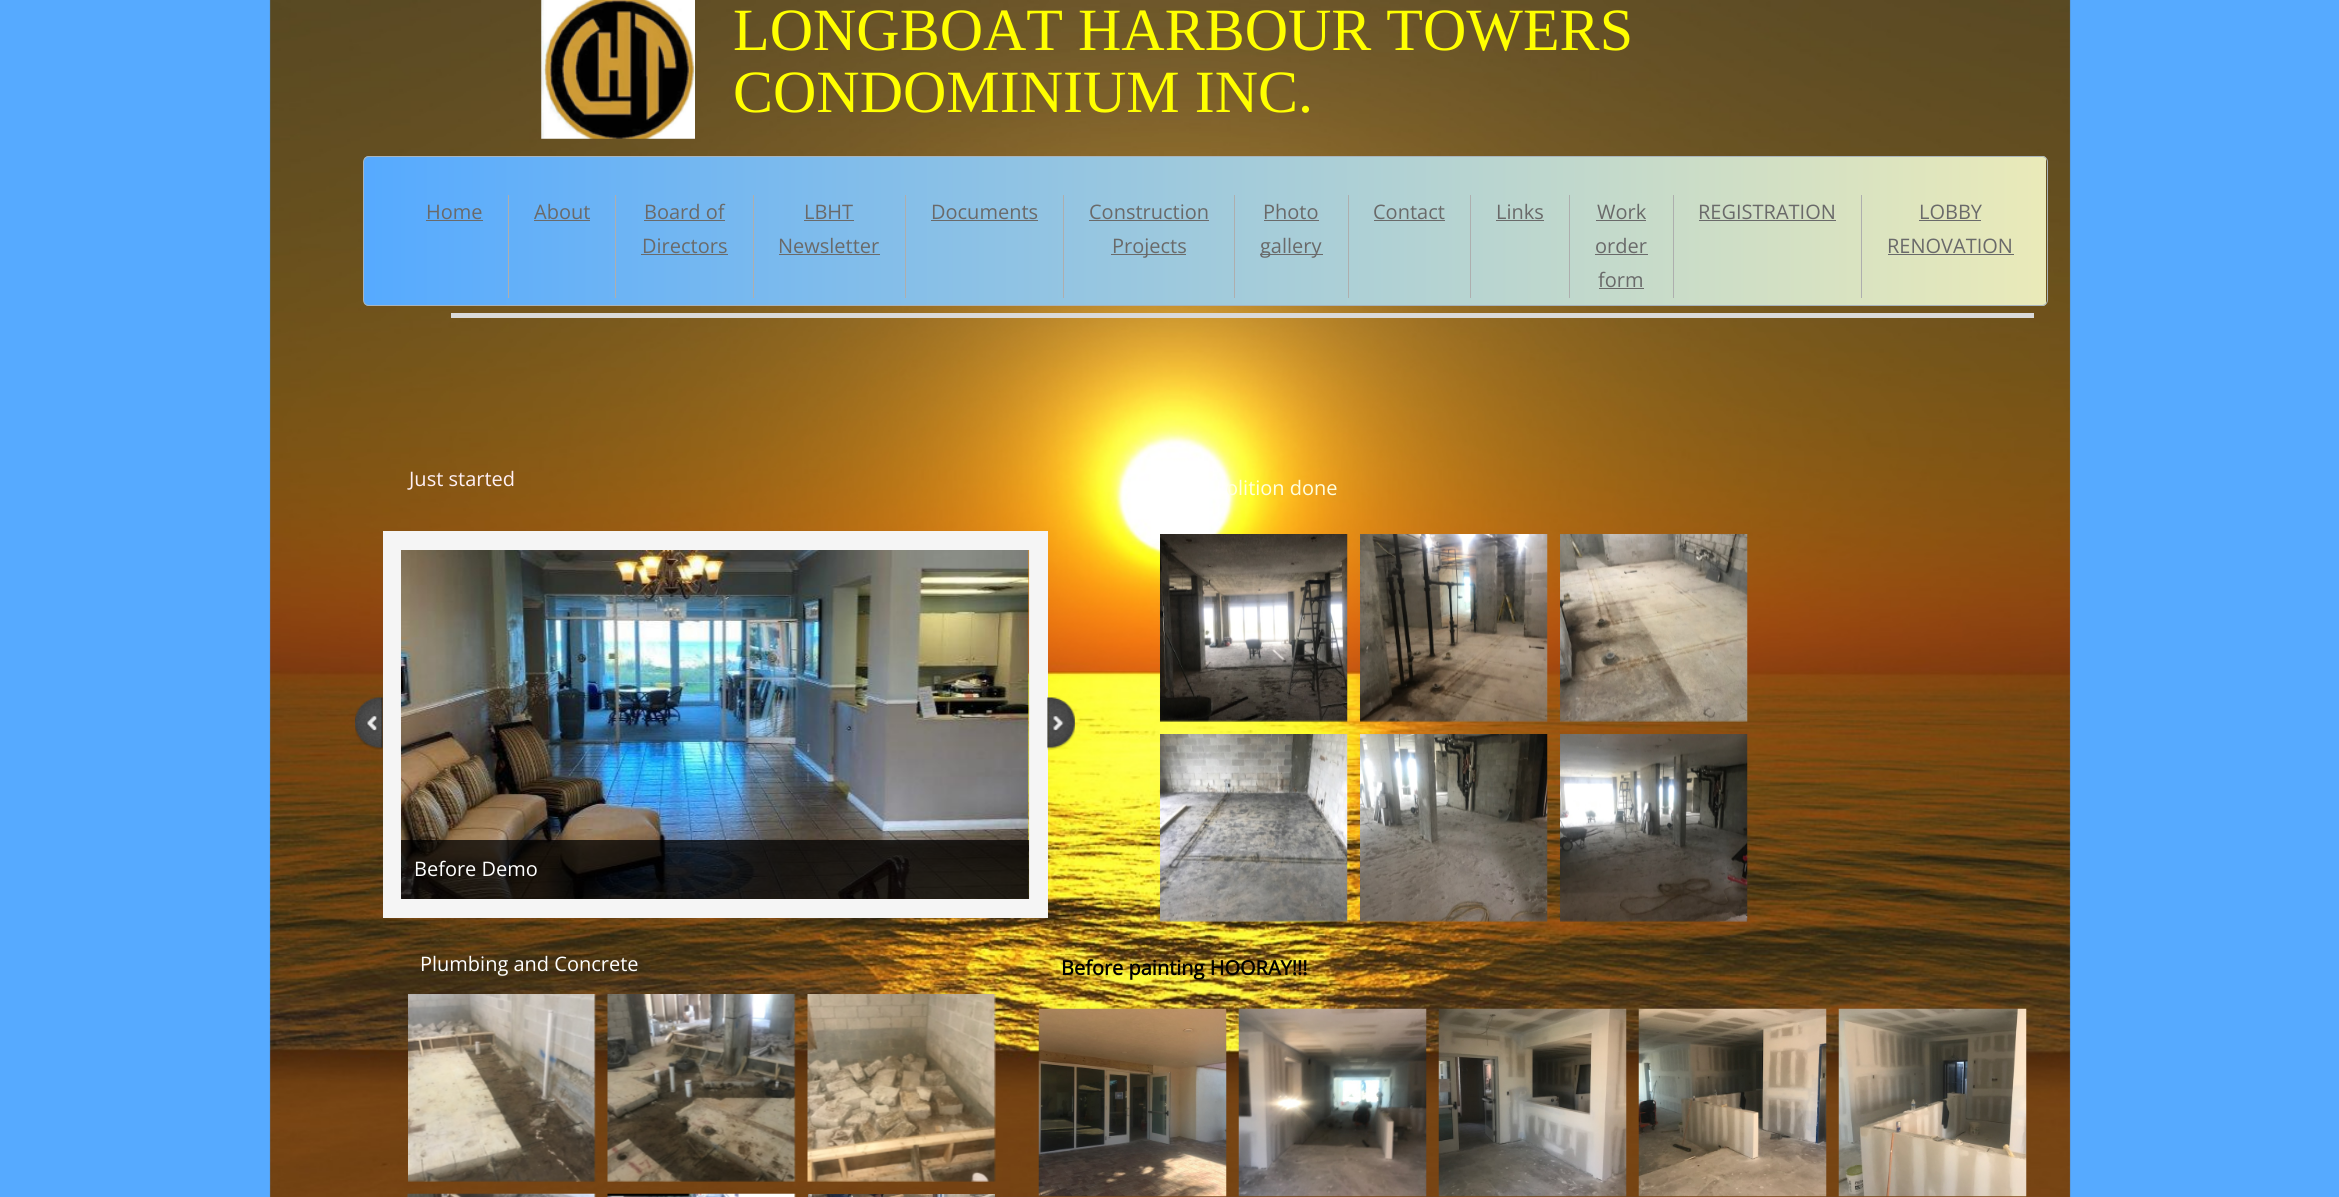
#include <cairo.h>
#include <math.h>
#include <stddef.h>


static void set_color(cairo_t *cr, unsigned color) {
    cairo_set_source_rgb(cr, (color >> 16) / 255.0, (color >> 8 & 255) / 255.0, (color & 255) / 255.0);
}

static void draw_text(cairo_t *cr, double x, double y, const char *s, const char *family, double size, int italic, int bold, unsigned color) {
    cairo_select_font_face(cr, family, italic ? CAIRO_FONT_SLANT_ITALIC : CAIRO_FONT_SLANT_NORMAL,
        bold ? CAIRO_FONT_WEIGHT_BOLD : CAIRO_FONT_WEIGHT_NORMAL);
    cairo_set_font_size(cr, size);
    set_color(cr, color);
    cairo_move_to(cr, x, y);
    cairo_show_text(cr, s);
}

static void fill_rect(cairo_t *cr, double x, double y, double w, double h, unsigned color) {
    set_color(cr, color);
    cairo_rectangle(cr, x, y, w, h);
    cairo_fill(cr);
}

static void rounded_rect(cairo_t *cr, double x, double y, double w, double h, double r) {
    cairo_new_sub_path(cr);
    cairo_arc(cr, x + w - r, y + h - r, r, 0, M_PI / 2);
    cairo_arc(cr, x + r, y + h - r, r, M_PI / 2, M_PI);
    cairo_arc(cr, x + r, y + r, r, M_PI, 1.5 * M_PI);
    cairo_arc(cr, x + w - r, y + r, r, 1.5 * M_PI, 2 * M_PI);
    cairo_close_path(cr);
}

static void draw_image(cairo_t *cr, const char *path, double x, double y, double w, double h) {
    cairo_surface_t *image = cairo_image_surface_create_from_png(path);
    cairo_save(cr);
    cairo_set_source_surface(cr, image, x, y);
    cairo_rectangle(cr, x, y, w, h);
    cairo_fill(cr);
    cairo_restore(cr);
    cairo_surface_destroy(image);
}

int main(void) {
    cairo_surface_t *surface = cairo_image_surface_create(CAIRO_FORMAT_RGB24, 2339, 1197);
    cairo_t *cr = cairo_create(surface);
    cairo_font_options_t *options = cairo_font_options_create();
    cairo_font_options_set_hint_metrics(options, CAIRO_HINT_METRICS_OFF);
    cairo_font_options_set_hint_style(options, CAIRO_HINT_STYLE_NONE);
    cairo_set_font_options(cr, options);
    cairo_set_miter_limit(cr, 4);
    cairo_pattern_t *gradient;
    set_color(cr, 0x56AAFF);
    cairo_paint(cr);
    draw_image(cr, "assets/img1.png", 269, 0, 1802, 1197);
    draw_image(cr, "assets/img2.png", 541, 0, 154, 139);
    draw_text(cr, 733, 50, "LONGBOAT HARBOUR TOWERS", "Liberation Serif", 60, 0, 0, 0xFFFF00);
    draw_text(cr, 733, 112, "CONDOMINIUM INC.", "Liberation Serif", 60, 0, 0, 0xFFFF00);
    cairo_save(cr);
    rounded_rect(cr, 363, 156, 1685, 150, 6);
    cairo_clip(cr);
    gradient = cairo_pattern_create_linear(364, 231, 2046, 231);
    cairo_pattern_add_color_stop_rgba(gradient, 0, 0.337, 0.667, 1, 1);
    cairo_pattern_add_color_stop_rgba(gradient, 1, 0.918, 0.918, 0.725, 1);
    cairo_set_source(cr, gradient);
    cairo_pattern_destroy(gradient);
    cairo_rectangle(cr, 364, 156, 1682, 150);
    cairo_fill(cr);
    cairo_restore(cr);
    rounded_rect(cr, 363.5, 156.5, 1684, 149, 5.5);
    set_color(cr, 0xA9B4BB);
    cairo_set_line_width(cr, 1);
    cairo_stroke(cr);
    fill_rect(cr, 508, 195, 1, 103, 0xAEAEAE);
    draw_text(cr, 426, 219, "Home", "Open Sans", 20, 0, 0, 0x6A6A6A);
    fill_rect(cr, 426, 220, 57, 1, 0x6A6A6A);
    fill_rect(cr, 615, 195, 1, 103, 0xAEAEAE);
    draw_text(cr, 534, 219, "About", "Open Sans", 20, 0, 0, 0x6A6A6A);
    fill_rect(cr, 534, 220, 56, 1, 0x6A6A6A);
    fill_rect(cr, 753, 195, 1, 103, 0xAEAEAE);
    draw_text(cr, 644, 219, "Board of", "Open Sans", 20, 0, 0, 0x6A6A6A);
    fill_rect(cr, 644, 220, 81, 1, 0x6A6A6A);
    draw_text(cr, 642, 253, "Directors", "Open Sans", 20, 0, 0, 0x6A6A6A);
    fill_rect(cr, 641, 254, 87, 1, 0x6A6A6A);
    fill_rect(cr, 905, 195, 1, 103, 0xAEAEAE);
    draw_text(cr, 804, 219, "LBHT", "Open Sans", 20, 0, 0, 0x6A6A6A);
    fill_rect(cr, 804, 220, 50, 1, 0x6A6A6A);
    draw_text(cr, 778, 253, "Newsletter", "Open Sans", 20, 0, 0, 0x6A6A6A);
    fill_rect(cr, 779, 254, 101, 1, 0x6A6A6A);
    fill_rect(cr, 1063, 195, 1, 103, 0xAEAEAE);
    draw_text(cr, 931, 219, "Documents", "Open Sans", 20, 0, 0, 0x6A6A6A);
    fill_rect(cr, 931, 220, 107, 1, 0x6A6A6A);
    fill_rect(cr, 1234, 195, 1, 103, 0xAEAEAE);
    draw_text(cr, 1089, 219, "Construction", "Open Sans", 20, 0, 0, 0x6A6A6A);
    fill_rect(cr, 1089, 220, 120, 1, 0x6A6A6A);
    fill_rect(cr, 1111, 254, 75, 1, 0x6A6A6A);
    draw_text(cr, 1112, 253, "Projects", "Open Sans", 20, 0, 0, 0x6A6A6A);
    fill_rect(cr, 1348, 195, 1, 103, 0xAEAEAE);
    draw_text(cr, 1263, 219, "Photo", "Open Sans", 20, 0, 0, 0x6A6A6A);
    fill_rect(cr, 1264, 220, 55, 1, 0x6A6A6A);
    fill_rect(cr, 1260, 254, 63, 1, 0x6A6A6A);
    draw_text(cr, 1260, 253, "gallery", "Open Sans", 20, 0, 0, 0x6A6A6A);
    fill_rect(cr, 1470, 195, 1, 103, 0xAEAEAE);
    draw_text(cr, 1373, 219, "Contact", "Open Sans", 20, 0, 0, 0x6A6A6A);
    fill_rect(cr, 1374, 220, 71, 1, 0x6A6A6A);
    fill_rect(cr, 1569, 195, 1, 103, 0xAEAEAE);
    draw_text(cr, 1496, 219, "Links", "Open Sans", 20, 0, 0, 0x6A6A6A);
    fill_rect(cr, 1496, 220, 48, 1, 0x6A6A6A);
    fill_rect(cr, 1673, 195, 1, 103, 0xAEAEAE);
    draw_text(cr, 1597, 219, "Work", "Open Sans", 20, 0, 0, 0x6A6A6A);
    fill_rect(cr, 1596, 220, 50, 1, 0x6A6A6A);
    draw_text(cr, 1595, 253, "order", "Open Sans", 20, 0, 0, 0x6A6A6A);
    fill_rect(cr, 1595, 254, 53, 1, 0x6A6A6A);
    draw_text(cr, 1598, 287, "form", "Open Sans", 20, 0, 0, 0x6A6A6A);
    fill_rect(cr, 1599, 288, 45, 1, 0x6A6A6A);
    fill_rect(cr, 1861, 195, 1, 103, 0xAEAEAE);
    draw_text(cr, 1698, 219, "REGISTRATION", "Open Sans", 20, 0, 0, 0x6A6A6A);
    fill_rect(cr, 1699, 220, 137, 1, 0x6A6A6A);
    draw_text(cr, 1919, 219, "LOBBY", "Open Sans", 20, 0, 0, 0x6A6A6A);
    fill_rect(cr, 1919, 220, 62, 1, 0x6A6A6A);
    draw_text(cr, 1887, 253, "RENOVATION", "Open Sans", 20, 0, 0, 0x6A6A6A);
    fill_rect(cr, 1888, 254, 126, 1, 0x6A6A6A);
    fill_rect(cr, 451, 313, 1583, 5, 0xDADADA);
    draw_text(cr, 409, 486, "Just started", "Open Sans", 20, 0, 0, 0xFFF0F5);
    draw_text(cr, 1226, 495, "olition done", "Open Sans", 20, 0, 0, 0xFFFFE0);
    draw_image(cr, "assets/img3.png", 355, 697, 28, 53);
    cairo_rectangle(cr, 392.5, 540.5, 646, 368);
    set_color(cr, 0xF5F5F5);
    cairo_set_line_width(cr, 19);
    cairo_stroke(cr);
    draw_image(cr, "assets/img4.png", 1047, 697, 28, 53);
    draw_image(cr, "assets/img5.png", 401, 550, 629, 349);
    cairo_set_source_rgba(cr, 0, 0, 0, 0.75);
    cairo_rectangle(cr, 401, 840, 628, 59);
    cairo_fill(cr);
    draw_text(cr, 414, 876, "Before Demo", "Open Sans", 20, 0, 0, 0xFFFFFF);
    draw_image(cr, "assets/img6.png", 1160, 534, 188, 188);
    draw_image(cr, "assets/img7.png", 1360, 534, 188, 188);
    draw_image(cr, "assets/img8.png", 1560, 534, 188, 188);
    draw_image(cr, "assets/img9.png", 1160, 734, 188, 188);
    draw_image(cr, "assets/img10.png", 1360, 734, 188, 188);
    draw_image(cr, "assets/img11.png", 1560, 734, 188, 188);
    draw_text(cr, 420, 971, "Plumbing and Concrete", "Open Sans", 20, 0, 0, 0xFFFFFF);
    draw_text(cr, 1061, 975, "Before painting HOORAY!!!", "Open Sans", 20, 0, 1, 0x000000);
    draw_image(cr, "assets/img12.png", 408, 994, 188, 188);
    draw_image(cr, "assets/img13.png", 607, 994, 189, 188);
    draw_image(cr, "assets/img14.png", 807, 994, 189, 188);
    draw_image(cr, "assets/img15.png", 407, 1193, 189, 4);
    draw_image(cr, "assets/img16.png", 607, 1193, 189, 4);
    draw_image(cr, "assets/img17.png", 808, 1194, 187, 3);
    draw_image(cr, "assets/img18.png", 1038, 1008, 189, 189);
    draw_image(cr, "assets/img19.png", 1238, 1008, 189, 189);
    draw_image(cr, "assets/img20.png", 1438, 1008, 189, 189);
    draw_image(cr, "assets/img21.png", 1638, 1008, 189, 189);
    draw_image(cr, "assets/img22.png", 1838, 1008, 189, 189);
    cairo_surface_write_to_png(surface, "output.png");
    cairo_font_options_destroy(options);
    cairo_destroy(cr);
    cairo_surface_destroy(surface);
    return 0;
}
